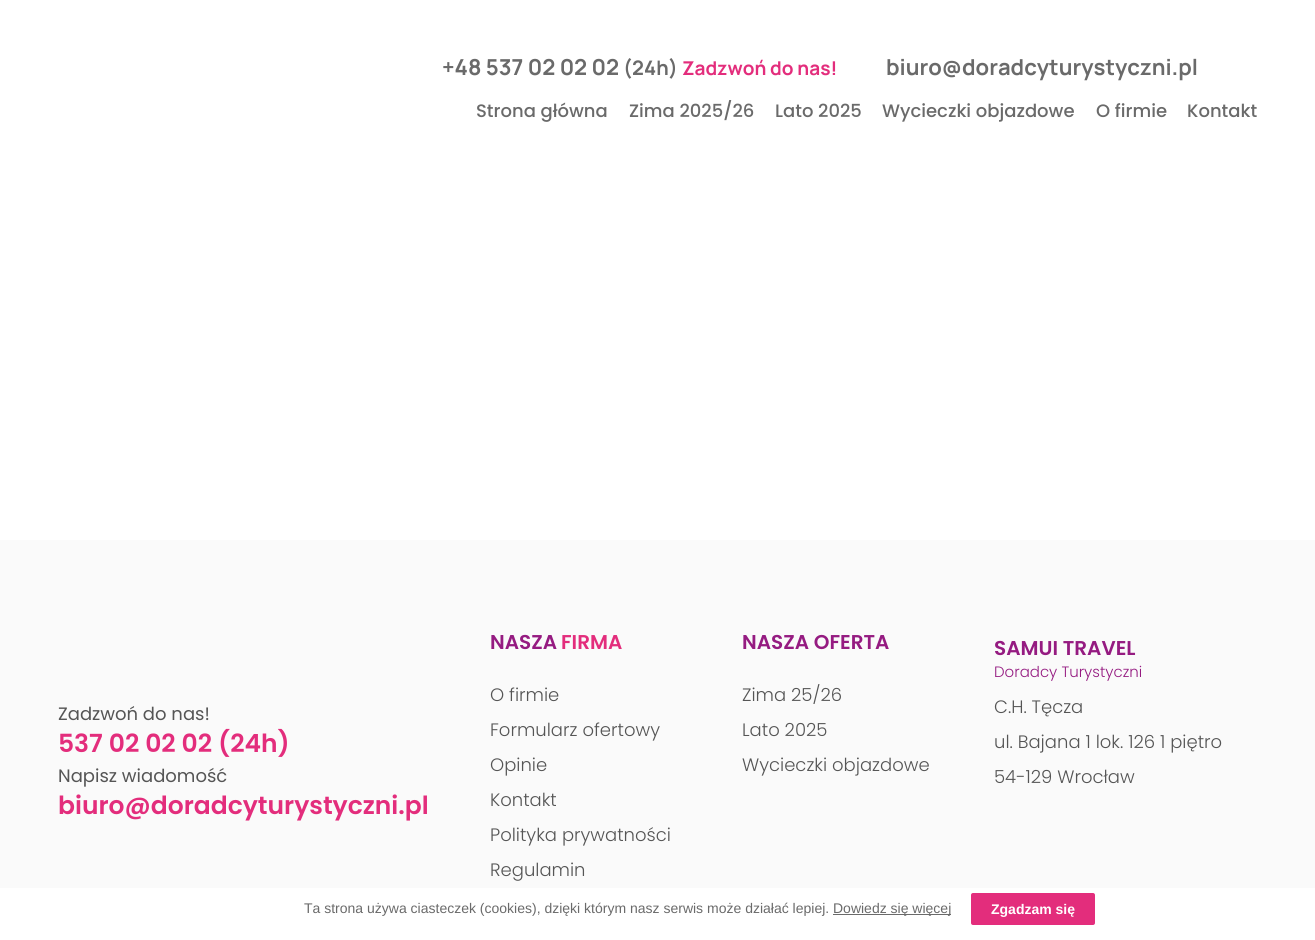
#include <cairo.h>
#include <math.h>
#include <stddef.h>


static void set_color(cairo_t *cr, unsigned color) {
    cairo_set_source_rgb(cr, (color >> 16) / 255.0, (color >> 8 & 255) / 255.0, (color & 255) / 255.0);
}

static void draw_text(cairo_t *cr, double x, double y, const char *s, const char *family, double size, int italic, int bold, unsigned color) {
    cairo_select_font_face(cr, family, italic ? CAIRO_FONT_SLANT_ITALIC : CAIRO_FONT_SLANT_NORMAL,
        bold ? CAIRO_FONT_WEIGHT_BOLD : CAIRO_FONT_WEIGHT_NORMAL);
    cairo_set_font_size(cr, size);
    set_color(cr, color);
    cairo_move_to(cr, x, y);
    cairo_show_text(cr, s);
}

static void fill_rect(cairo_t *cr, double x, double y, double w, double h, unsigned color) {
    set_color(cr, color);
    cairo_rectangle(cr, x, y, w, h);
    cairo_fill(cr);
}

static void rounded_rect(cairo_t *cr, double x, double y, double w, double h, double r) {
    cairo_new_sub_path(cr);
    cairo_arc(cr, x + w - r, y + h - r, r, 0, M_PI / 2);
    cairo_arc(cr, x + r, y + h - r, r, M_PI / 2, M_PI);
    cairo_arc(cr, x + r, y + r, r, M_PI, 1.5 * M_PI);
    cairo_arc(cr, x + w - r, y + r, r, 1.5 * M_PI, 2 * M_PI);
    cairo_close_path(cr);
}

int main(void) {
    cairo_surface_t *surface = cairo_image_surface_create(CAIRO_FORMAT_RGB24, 1315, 940);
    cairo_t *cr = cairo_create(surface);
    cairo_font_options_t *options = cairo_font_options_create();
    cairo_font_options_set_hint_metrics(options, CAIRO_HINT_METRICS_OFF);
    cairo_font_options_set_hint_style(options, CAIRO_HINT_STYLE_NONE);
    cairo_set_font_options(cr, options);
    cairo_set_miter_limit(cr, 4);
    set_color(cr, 0xFFFFFF);
    cairo_paint(cr);
    draw_text(cr, 442, 75, "+48 537 02 02 02", "Manrope", 22, 0, 1, 0x6A6A6A);
    draw_text(cr, 623, 75, "(24h)", "Manrope", 20, 0, 1, 0x6A6A6A);
    draw_text(cr, 682, 75, "Zadzwoń do nas!", "Manrope", 19, 0, 1, 0xE32D7C);
    draw_text(cr, 886, 75, "biuro@doradcyturystyczni.pl", "Manrope", 22, 0, 1, 0x6A6A6A);
    draw_text(cr, 476, 117, "Strona główna", "Poppins Medium", 18, 0, 0, 0x6A6A6A);
    draw_text(cr, 629, 117, "Zima 2025/26", "Poppins Medium", 18, 0, 0, 0x6A6A6A);
    draw_text(cr, 775, 117, "Lato 2025", "Poppins Medium", 18, 0, 0, 0x6A6A6A);
    draw_text(cr, 882, 117, "Wycieczki objazdowe", "Poppins Medium", 18, 0, 0, 0x6A6A6A);
    draw_text(cr, 1096, 117, "O firmie", "Poppins Medium", 18, 0, 0, 0x6A6A6A);
    draw_text(cr, 1187, 117, "Kontakt", "Poppins Medium", 18, 0, 0, 0x6A6A6A);
    fill_rect(cr, 0, 540, 1315, 348, 0xFAFAFA);
    draw_text(cr, 58, 720, "Zadzwoń do nas!", "Poppins", 18, 0, 0, 0x555555);
    draw_text(cr, 58, 752, "537 02 02 02 (24h)", "Poppins SemiBold", 25, 0, 0, 0xE32D7C);
    draw_text(cr, 58, 782, "Napisz wiadomość", "Poppins", 18, 0, 0, 0x555555);
    draw_text(cr, 58, 814, "biuro@doradcyturystyczni.pl", "Poppins SemiBold", 25, 0, 0, 0xE32D7C);
    draw_text(cr, 490, 649, "NASZA", "Poppins SemiBold", 20, 0, 0, 0x951B81);
    draw_text(cr, 561, 649, "FIRMA", "Poppins SemiBold", 20, 0, 0, 0xE32D7C);
    draw_text(cr, 490, 701, "O firmie", "Poppins Light", 18, 0, 0, 0x555555);
    draw_text(cr, 490, 736, "Formularz ofertowy", "Poppins Light", 18, 0, 0, 0x555555);
    draw_text(cr, 490, 771, "Opinie", "Poppins Light", 18, 0, 0, 0x555555);
    draw_text(cr, 490, 806, "Kontakt", "Poppins Light", 18, 0, 0, 0x555555);
    draw_text(cr, 490, 841, "Polityka prywatności", "Poppins Light", 18, 0, 0, 0x555555);
    draw_text(cr, 490, 876, "Regulamin", "Poppins Light", 18, 0, 0, 0x555555);
    draw_text(cr, 742, 649, "NASZA OFERTA", "Poppins SemiBold", 20, 0, 0, 0x951B81);
    draw_text(cr, 742, 701, "Zima 25/26", "Poppins Light", 18, 0, 0, 0x555555);
    draw_text(cr, 742, 736, "Lato 2025", "Poppins Light", 18, 0, 0, 0x555555);
    draw_text(cr, 742, 771, "Wycieczki objazdowe", "Poppins Light", 18, 0, 0, 0x555555);
    draw_text(cr, 994, 655, "SAMUI TRAVEL", "Poppins SemiBold", 20, 0, 0, 0x951B81);
    draw_text(cr, 994, 677, "Doradcy Turystyczni", "Poppins Light", 15, 0, 0, 0x951B81);
    draw_text(cr, 994, 713, "C.H. Tęcza", "Poppins Light", 18, 0, 0, 0x555555);
    draw_text(cr, 994, 748, "ul. Bajana 1 lok. 126 1 piętro", "Poppins Light", 18, 0, 0, 0x555555);
    draw_text(cr, 994, 783, "54-129 Wrocław", "Poppins Light", 18, 0, 0, 0x555555);
    draw_text(cr, 304, 913, "Ta strona używa ciasteczek (cookies), dzięki którym nasz serwis może działać lepiej.", "Liberation Sans", 14, 0, 0, 0x6A6A6A);
    fill_rect(cr, 833, 914, 118, 1, 0x6A6A6A);
    draw_text(cr, 833, 913, "Dowiedz się więcej", "Liberation Sans", 14, 0, 0, 0x6A6A6A);
    set_color(cr, 0xE32D7C);
    rounded_rect(cr, 971, 893, 124, 32, 2);
    cairo_fill(cr);
    draw_text(cr, 991, 914, "Zgadzam się", "Liberation Sans", 14, 0, 1, 0xFFFFFF);
    cairo_surface_write_to_png(surface, "output.png");
    cairo_font_options_destroy(options);
    cairo_destroy(cr);
    cairo_surface_destroy(surface);
    return 0;
}
